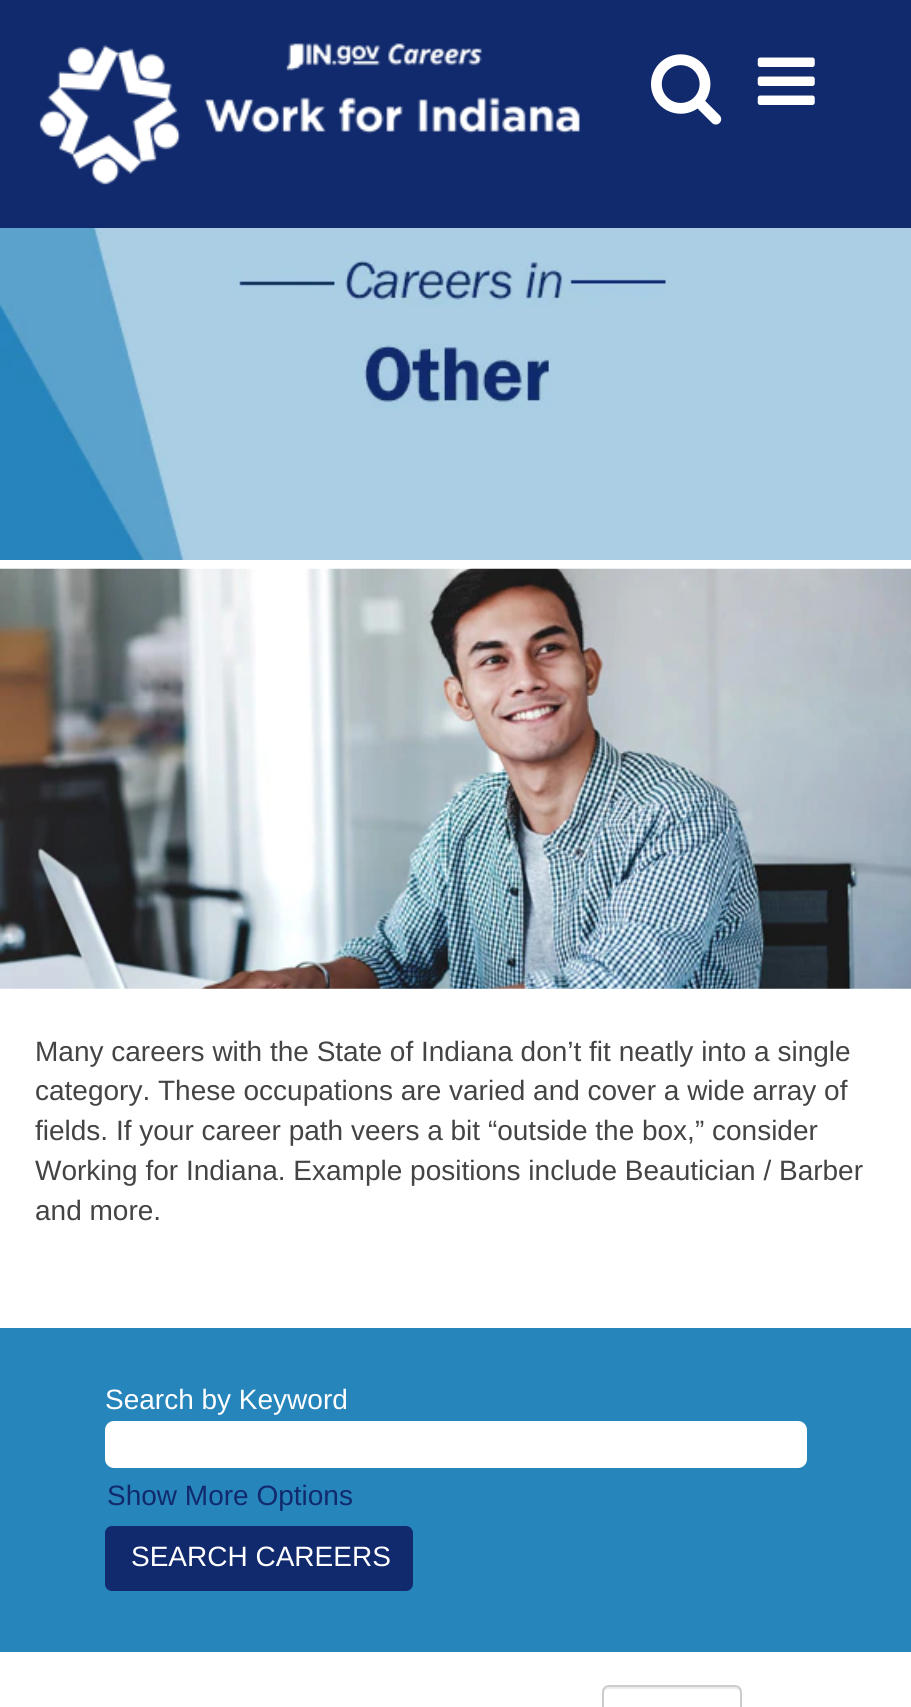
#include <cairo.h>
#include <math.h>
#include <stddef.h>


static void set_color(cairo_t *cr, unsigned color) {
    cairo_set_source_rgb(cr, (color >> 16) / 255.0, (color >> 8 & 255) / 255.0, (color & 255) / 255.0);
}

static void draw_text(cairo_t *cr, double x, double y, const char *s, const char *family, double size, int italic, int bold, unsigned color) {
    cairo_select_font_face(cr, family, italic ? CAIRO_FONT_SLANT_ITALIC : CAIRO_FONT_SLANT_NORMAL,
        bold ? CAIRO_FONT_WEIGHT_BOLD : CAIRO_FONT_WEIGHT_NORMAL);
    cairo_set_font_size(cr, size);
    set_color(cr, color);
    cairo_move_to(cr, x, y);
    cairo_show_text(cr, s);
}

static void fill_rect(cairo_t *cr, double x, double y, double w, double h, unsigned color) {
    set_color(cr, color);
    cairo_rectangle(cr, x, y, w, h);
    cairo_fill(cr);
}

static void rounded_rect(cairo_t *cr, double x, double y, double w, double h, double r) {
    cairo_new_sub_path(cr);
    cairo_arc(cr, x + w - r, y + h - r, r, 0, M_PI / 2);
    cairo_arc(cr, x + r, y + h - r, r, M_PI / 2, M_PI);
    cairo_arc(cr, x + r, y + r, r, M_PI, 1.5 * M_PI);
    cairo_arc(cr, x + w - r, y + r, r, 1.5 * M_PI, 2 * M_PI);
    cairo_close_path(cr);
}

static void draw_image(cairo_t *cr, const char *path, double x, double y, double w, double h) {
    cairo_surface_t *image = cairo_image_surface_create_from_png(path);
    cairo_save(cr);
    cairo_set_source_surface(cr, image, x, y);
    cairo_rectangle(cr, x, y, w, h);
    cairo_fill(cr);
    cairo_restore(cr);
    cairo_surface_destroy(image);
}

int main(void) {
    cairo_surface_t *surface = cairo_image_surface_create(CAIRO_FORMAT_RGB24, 911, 1707);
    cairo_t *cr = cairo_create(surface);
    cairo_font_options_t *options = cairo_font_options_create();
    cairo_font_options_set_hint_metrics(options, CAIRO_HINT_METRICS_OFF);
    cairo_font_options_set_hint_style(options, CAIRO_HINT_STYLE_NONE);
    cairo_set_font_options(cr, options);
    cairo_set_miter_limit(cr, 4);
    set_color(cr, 0xFFFFFF);
    cairo_paint(cr);
    fill_rect(cr, 0, 0, 911, 228, 0x112A6D);
    draw_image(cr, "assets/img1.png", 39, 43, 541, 142);
    draw_image(cr, "assets/img2.png", 651, 54, 71, 71);
    draw_image(cr, "assets/img3.png", 757, 57, 58, 48);
    draw_image(cr, "assets/img4.png", 0, 228, 911, 332);
    draw_image(cr, "assets/img5.png", 0, 568, 911, 421);
    draw_text(cr, 35, 1061, "Many careers with the State of Indiana don’t fit neatly into a single", "Liberation Sans", 28, 0, 0, 0x444444);
    draw_text(cr, 35, 1100, "category. These occupations are varied and cover a wide array of", "Liberation Sans", 28, 0, 0, 0x444444);
    draw_text(cr, 35, 1140, "fields. If your career path veers a bit “outside the box,” consider", "Liberation Sans", 28, 0, 0, 0x444444);
    draw_text(cr, 35, 1180, "Working for Indiana. Example positions include Beautician / Barber", "Liberation Sans", 28, 0, 0, 0x444444);
    draw_text(cr, 35, 1220, "and more.", "Liberation Sans", 28, 0, 0, 0x444444);
    fill_rect(cr, 0, 1328, 911, 324, 0x2685BB);
    draw_text(cr, 105, 1409, "Search by Keyword", "Liberation Sans", 28, 0, 0, 0xFFFFFF);
    rounded_rect(cr, 105, 1421, 702, 47, 9);
    cairo_fill(cr);
    draw_text(cr, 107, 1505, "Show More Options", "Liberation Sans", 28, 0, 0, 0x112A6D);
    rounded_rect(cr, 105, 1526, 308, 65, 7);
    cairo_fill(cr);
    draw_text(cr, 131, 1566, "SEARCH CAREERS", "Liberation Sans", 28, 0, 0, 0xFFFFFF);
    set_color(cr, 0xECECEC);
    cairo_new_path(cr);
    cairo_move_to(cr, 609, 1689);
    cairo_line_to(cr, 735, 1689);
    cairo_curve_to(cr, 738, 1689, 740, 1691, 740, 1694);
    cairo_line_to(cr, 740, 1692);
    cairo_curve_to(cr, 740, 1689, 738, 1687, 735, 1687);
    cairo_line_to(cr, 609, 1687);
    cairo_curve_to(cr, 606, 1687, 604, 1689, 604, 1692);
    cairo_line_to(cr, 604, 1694);
    cairo_curve_to(cr, 604, 1691, 606, 1689, 609, 1689);
    cairo_close_path(cr);
    cairo_fill(cr);
    rounded_rect(cr, 603, 1686, 138, 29, 6);
    set_color(cr, 0xCCCCCC);
    cairo_stroke(cr);
    cairo_surface_write_to_png(surface, "output.png");
    cairo_font_options_destroy(options);
    cairo_destroy(cr);
    cairo_surface_destroy(surface);
    return 0;
}
